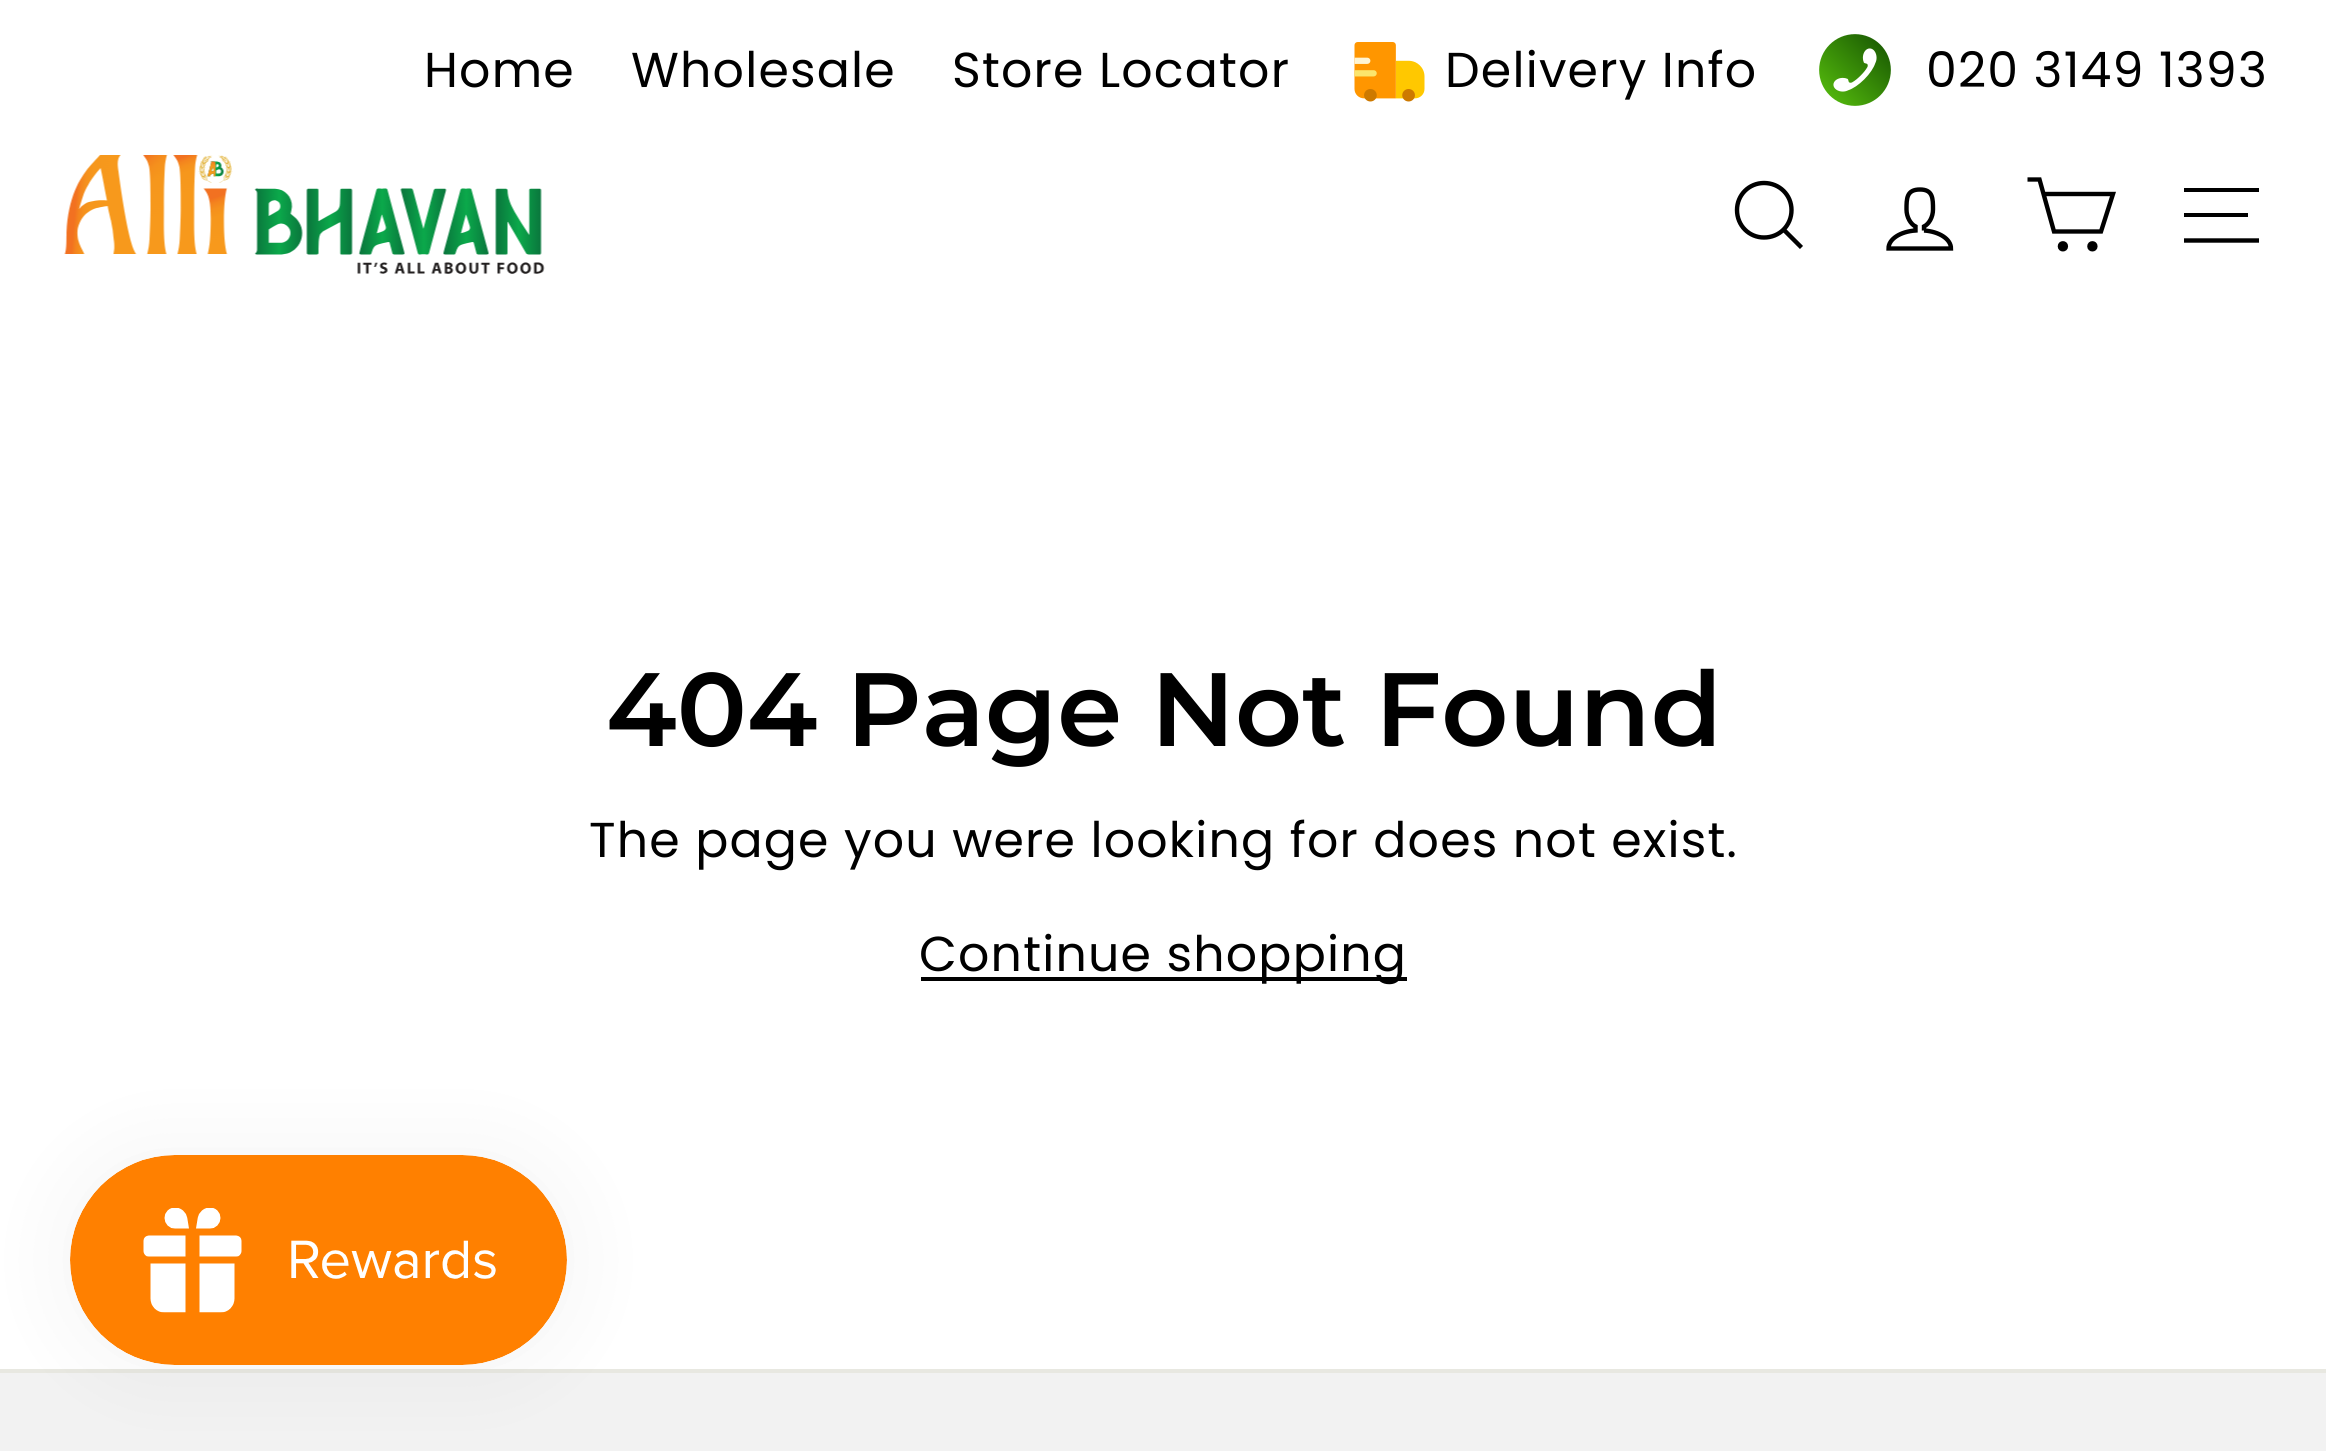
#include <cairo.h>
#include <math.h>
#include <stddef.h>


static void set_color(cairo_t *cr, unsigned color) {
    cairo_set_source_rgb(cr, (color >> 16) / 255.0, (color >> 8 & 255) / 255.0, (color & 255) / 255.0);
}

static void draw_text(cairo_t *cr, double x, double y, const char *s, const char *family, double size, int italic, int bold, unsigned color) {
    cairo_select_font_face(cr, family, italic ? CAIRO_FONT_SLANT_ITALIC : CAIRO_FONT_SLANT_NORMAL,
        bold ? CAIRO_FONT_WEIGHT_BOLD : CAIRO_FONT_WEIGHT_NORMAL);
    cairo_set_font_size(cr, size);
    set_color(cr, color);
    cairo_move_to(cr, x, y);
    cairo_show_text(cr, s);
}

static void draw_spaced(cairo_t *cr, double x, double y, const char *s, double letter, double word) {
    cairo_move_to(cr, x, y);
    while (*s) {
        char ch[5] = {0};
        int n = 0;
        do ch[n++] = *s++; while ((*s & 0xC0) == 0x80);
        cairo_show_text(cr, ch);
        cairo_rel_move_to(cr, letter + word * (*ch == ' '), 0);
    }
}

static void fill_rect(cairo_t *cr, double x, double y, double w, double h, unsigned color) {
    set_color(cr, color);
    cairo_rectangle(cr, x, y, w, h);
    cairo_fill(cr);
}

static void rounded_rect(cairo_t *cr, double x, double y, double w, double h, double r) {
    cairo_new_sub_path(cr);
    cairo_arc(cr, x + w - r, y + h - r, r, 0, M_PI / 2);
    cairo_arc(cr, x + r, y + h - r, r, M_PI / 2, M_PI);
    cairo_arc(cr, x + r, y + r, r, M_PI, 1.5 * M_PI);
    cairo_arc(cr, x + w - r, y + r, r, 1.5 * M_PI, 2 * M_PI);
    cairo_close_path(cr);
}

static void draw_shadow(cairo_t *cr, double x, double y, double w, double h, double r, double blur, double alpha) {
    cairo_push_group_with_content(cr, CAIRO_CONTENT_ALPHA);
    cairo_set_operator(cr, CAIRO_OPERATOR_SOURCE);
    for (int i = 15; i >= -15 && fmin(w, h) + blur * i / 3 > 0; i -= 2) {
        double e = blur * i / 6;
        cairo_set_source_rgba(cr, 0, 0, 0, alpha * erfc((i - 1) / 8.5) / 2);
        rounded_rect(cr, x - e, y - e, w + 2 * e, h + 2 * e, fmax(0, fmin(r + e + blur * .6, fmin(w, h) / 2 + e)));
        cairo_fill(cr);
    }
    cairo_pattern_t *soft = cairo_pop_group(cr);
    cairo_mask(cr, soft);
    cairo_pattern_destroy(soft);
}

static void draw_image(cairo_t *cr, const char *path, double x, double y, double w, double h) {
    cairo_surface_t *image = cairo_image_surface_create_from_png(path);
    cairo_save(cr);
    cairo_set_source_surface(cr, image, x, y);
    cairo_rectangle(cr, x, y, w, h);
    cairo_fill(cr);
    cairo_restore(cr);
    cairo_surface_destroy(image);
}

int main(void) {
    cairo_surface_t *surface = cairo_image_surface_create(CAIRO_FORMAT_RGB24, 2326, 1451);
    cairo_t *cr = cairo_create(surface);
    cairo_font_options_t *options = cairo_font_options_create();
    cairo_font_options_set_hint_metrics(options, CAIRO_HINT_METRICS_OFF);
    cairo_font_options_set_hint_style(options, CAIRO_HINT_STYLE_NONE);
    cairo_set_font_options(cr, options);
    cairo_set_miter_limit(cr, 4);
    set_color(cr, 0xFFFFFF);
    cairo_paint(cr);
    cairo_select_font_face(cr, "Poppins", CAIRO_FONT_SLANT_NORMAL, CAIRO_FONT_WEIGHT_NORMAL);
    cairo_set_font_size(cr, 49);
    set_color(cr, 0x000000);
    draw_spaced(cr, 424, 87, "Home", 1.2, 0);
    draw_spaced(cr, 631, 87, "Wholesale", 1.2, 0);
    draw_spaced(cr, 952, 87, "Store Locator", 1.2, 0);
    draw_image(cr, "assets/img1.png", 1354, 42, 71, 60);
    draw_spaced(cr, 1445, 87, "Delivery Info", 1.2, 0);
    draw_image(cr, "assets/img2.png", 1819, 34, 72, 72);
    draw_spaced(cr, 1926, 87, "020 3149 1393", 1.2, 0);
    draw_image(cr, "assets/img3.png", 64, 155, 481, 119);
    cairo_new_path(cr);
    cairo_move_to(cr, 1791.5, 210);
    cairo_curve_to(cr, 1791.5, 225.5, 1779.5, 237.5, 1764, 237.5);
    cairo_curve_to(cr, 1749, 237.5, 1737, 225.5, 1737, 210);
    cairo_curve_to(cr, 1737, 195, 1749, 183, 1764, 183);
    cairo_curve_to(cr, 1779.5, 183, 1791.5, 195, 1791.5, 210);
    cairo_move_to(cr, 1801.5, 247.5);
    cairo_line_to(cr, 1784, 230);
    cairo_set_line_width(cr, 4.4);
    cairo_stroke(cr);
    cairo_new_path(cr);
    cairo_move_to(cr, 1924, 230.5);
    cairo_line_to(cr, 1924, 226.5);
    cairo_curve_to(cr, 1929, 224, 1933, 217, 1933, 209.5);
    cairo_curve_to(cr, 1933, 198.5, 1933, 189.5, 1920, 189.5);
    cairo_curve_to(cr, 1906.5, 189.5, 1906.5, 198.5, 1906.5, 209.5);
    cairo_curve_to(cr, 1906.5, 217, 1910.5, 224, 1915.5, 226.5);
    cairo_line_to(cr, 1915.5, 230.5);
    cairo_curve_to(cr, 1900.5, 231.5, 1888.5, 239, 1888.5, 248.5);
    cairo_line_to(cr, 1951, 248.5);
    cairo_curve_to(cr, 1951, 239, 1939, 231.5, 1924, 230.5);
    cairo_stroke(cr);
    cairo_new_path(cr);
    cairo_move_to(cr, 2043.5, 194);
    cairo_line_to(cr, 2113, 194);
    cairo_line_to(cr, 2101, 231.5);
    cairo_line_to(cr, 2054, 231.5);
    cairo_line_to(cr, 2039.5, 179.5);
    cairo_line_to(cr, 2027.5, 179.5);
    cairo_stroke(cr);
    cairo_arc(cr, 2062.9, 246.3, 3, 0, 2 * M_PI);
    cairo_fill_preserve(cr);
    cairo_stroke(cr);
    cairo_arc(cr, 2092.4, 246.3, 3, 0, 2 * M_PI);
    cairo_fill_preserve(cr);
    cairo_stroke(cr);
    fill_rect(cr, 2184, 188, 75, 4, 0x000000);
    fill_rect(cr, 2184, 213, 64, 4, 0x000000);
    cairo_new_path(cr);
    cairo_move_to(cr, 2184, 240.5);
    cairo_line_to(cr, 2259, 240.5);
    cairo_stroke(cr);
    draw_text(cr, 606, 746, "404 Page Not Found", "Montserrat SemiBold", 104.1, 0, 0, 0x000000);
    cairo_select_font_face(cr, "Poppins", CAIRO_FONT_SLANT_NORMAL, CAIRO_FONT_WEIGHT_NORMAL);
    cairo_set_font_size(cr, 49);
    draw_spaced(cr, 589, 857, "The page you were looking for does not exist.", 1.2, 0);
    fill_rect(cr, 921, 977, 486, 4, 0x000000);
    draw_spaced(cr, 919, 971, "Continue shopping", 1.2, 0);
    fill_rect(cr, 0, 1373, 2326, 78, 0xF2F2F2);
    fill_rect(cr, 0, 1369, 2326, 4, 0xE8E8E1);
    set_color(cr, 0x000000);
    draw_shadow(cr, 70, 1155, 497, 210, 105, 44, 0.05);
    draw_image(cr, "assets/img4.png", 70, 1155, 497, 210);
    cairo_surface_write_to_png(surface, "output.png");
    cairo_font_options_destroy(options);
    cairo_destroy(cr);
    cairo_surface_destroy(surface);
    return 0;
}
